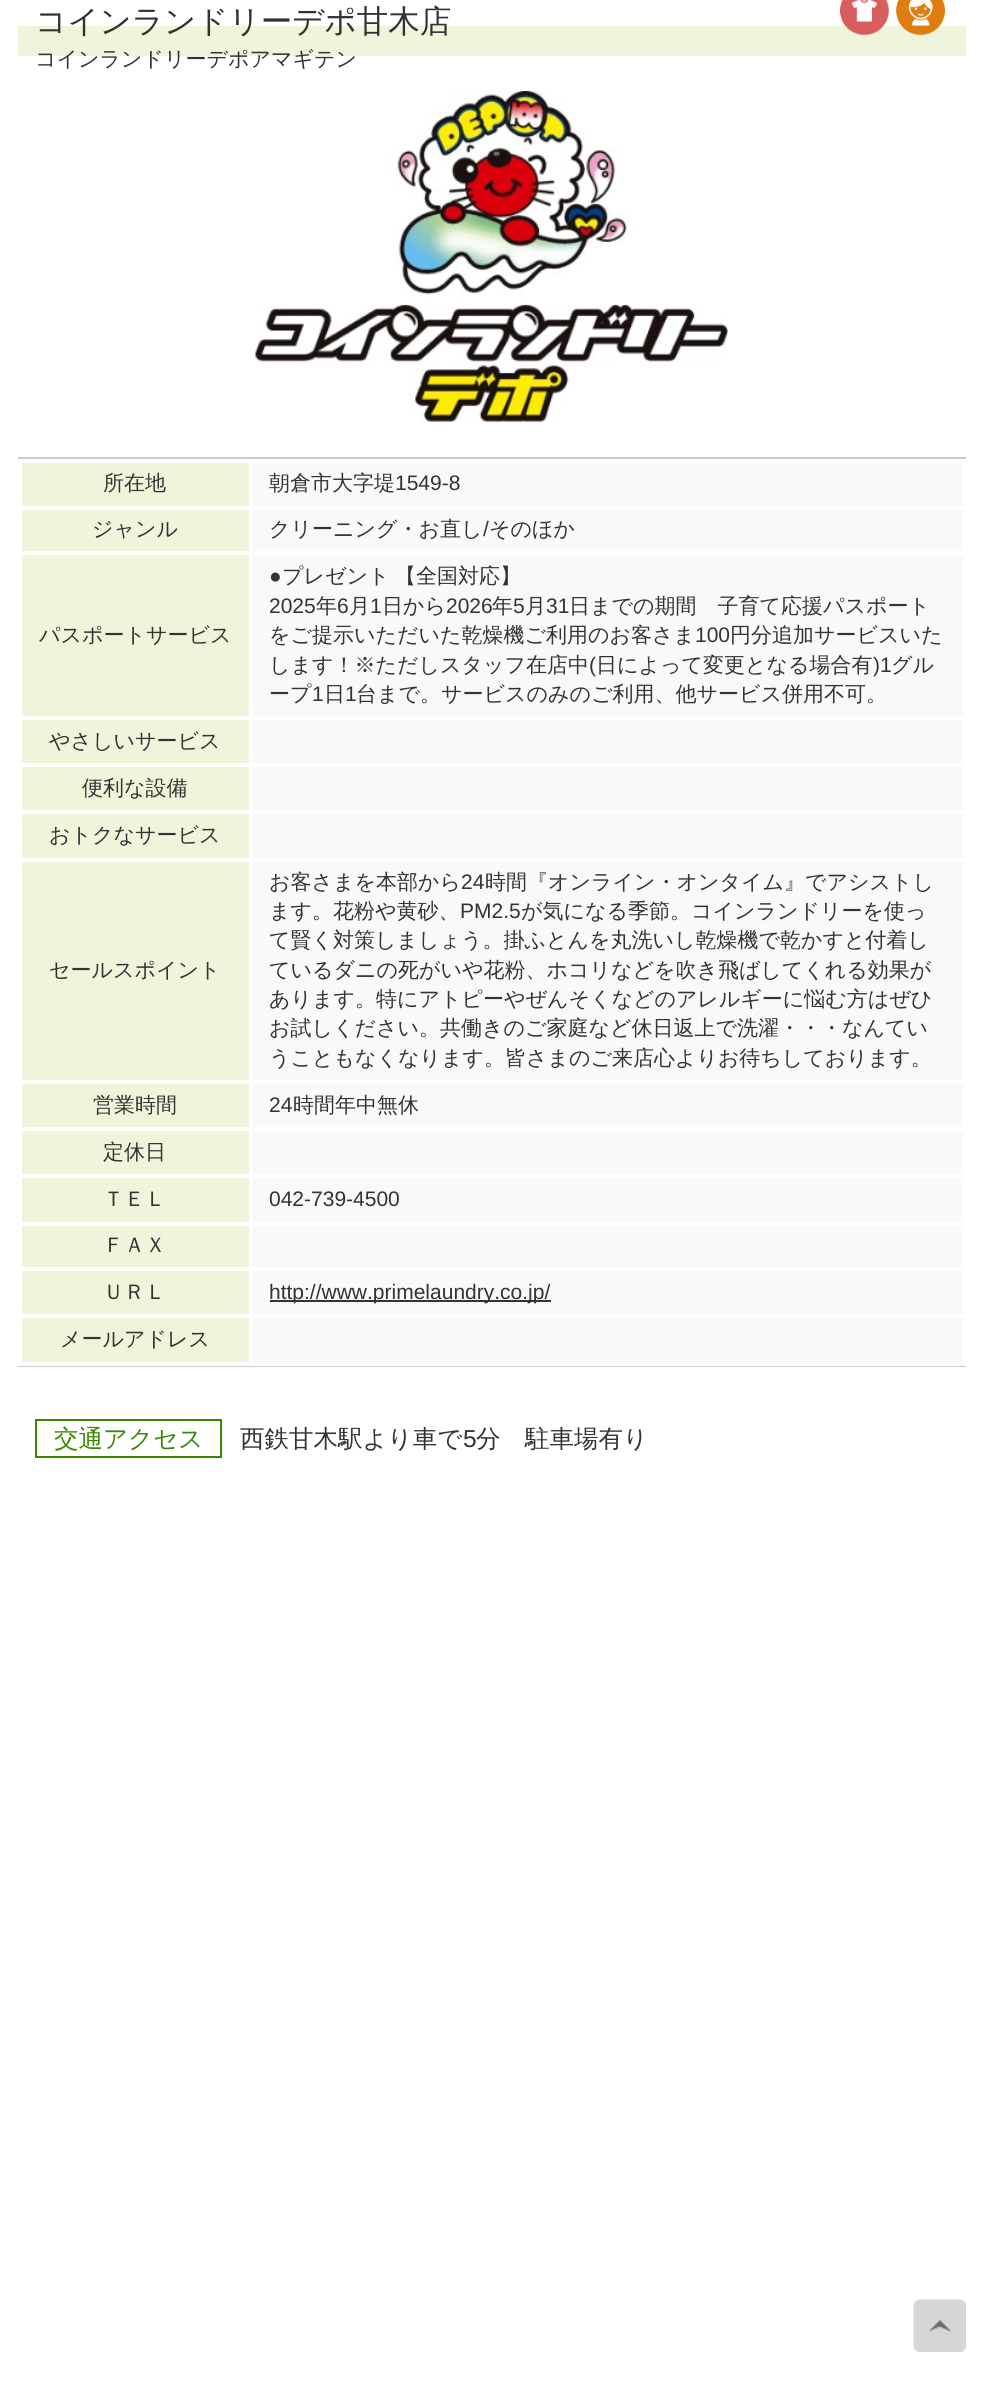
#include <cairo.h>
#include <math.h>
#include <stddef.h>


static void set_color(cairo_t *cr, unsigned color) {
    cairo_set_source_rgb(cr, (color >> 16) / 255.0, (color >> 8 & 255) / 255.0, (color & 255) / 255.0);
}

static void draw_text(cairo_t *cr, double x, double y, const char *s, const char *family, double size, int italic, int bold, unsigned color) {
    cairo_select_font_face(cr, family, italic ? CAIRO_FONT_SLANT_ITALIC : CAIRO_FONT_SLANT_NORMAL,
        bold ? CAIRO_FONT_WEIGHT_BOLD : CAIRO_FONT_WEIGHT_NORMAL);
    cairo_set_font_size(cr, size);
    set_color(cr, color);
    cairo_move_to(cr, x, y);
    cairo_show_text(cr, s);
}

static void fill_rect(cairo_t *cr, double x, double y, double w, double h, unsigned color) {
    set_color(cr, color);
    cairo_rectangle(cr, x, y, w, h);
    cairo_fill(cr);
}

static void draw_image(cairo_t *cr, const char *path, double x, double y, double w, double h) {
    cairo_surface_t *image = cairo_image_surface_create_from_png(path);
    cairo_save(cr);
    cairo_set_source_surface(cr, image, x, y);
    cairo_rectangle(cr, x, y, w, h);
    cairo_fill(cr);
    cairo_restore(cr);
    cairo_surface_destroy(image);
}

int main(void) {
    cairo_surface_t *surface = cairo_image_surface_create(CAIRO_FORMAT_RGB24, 983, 2386);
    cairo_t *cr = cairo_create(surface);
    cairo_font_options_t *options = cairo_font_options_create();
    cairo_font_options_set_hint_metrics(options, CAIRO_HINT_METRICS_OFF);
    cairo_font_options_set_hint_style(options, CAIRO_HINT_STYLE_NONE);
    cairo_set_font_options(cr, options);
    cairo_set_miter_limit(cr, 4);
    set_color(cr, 0xFFFFFF);
    cairo_paint(cr);
    fill_rect(cr, 18, 26, 948, 30, 0xEFF5DA);
    draw_text(cr, 35, 32, "コインランドリーデポ甘木店", "WenQuanYi Zen Hei Medium", 31.5, 0, 0, 0x333333);
    draw_text(cr, 35, 66, "コインランドリーデポアマギテン", "WenQuanYi Zen Hei Medium", 21, 0, 0, 0x333333);
    draw_image(cr, "assets/img1.png", 840, 0, 49, 35);
    draw_image(cr, "assets/img2.png", 896, 0, 49, 35);
    draw_image(cr, "assets/img3.png", 255, 91, 473, 331);
    fill_rect(cr, 18, 457, 948, 2, 0xCCCCCC);
    fill_rect(cr, 18, 1366, 948, 1, 0xCCCCCC);
    fill_rect(cr, 253, 463, 710, 899, 0xF9F9F9);
    fill_rect(cr, 253, 506, 713, 4, 0xFFFFFF);
    fill_rect(cr, 22, 463, 227, 43, 0xEFF5DA);
    draw_text(cr, 103, 490, "所在地", "WenQuanYi Zen Hei Medium", 21, 0, 0, 0x333333);
    draw_text(cr, 269, 490, "朝倉市大字堤", "WenQuanYi Zen Hei Medium", 21, 0, 0, 0x333333);
    draw_text(cr, 395, 490, "1549-8", "Liberation Sans", 21, 0, 0, 0x333333);
    fill_rect(cr, 253, 551, 713, 4, 0xFFFFFF);
    fill_rect(cr, 22, 510, 227, 41, 0xEFF5DA);
    draw_text(cr, 92, 536, "ジャンル", "WenQuanYi Zen Hei Medium", 21, 0, 0, 0x333333);
    draw_text(cr, 269, 536, "クリーニング・お直し", "WenQuanYi Zen Hei Medium", 21, 0, 0, 0x333333);
    draw_text(cr, 483, 536, "/", "Liberation Sans", 21, 0, 0, 0x333333);
    draw_text(cr, 489, 536, "そのほか", "WenQuanYi Zen Hei Medium", 21, 0, 0, 0x333333);
    fill_rect(cr, 253, 716, 713, 4, 0xFFFFFF);
    fill_rect(cr, 22, 555, 227, 161, 0xEFF5DA);
    draw_text(cr, 39, 642, "パスポートサービス", "WenQuanYi Zen Hei Medium", 21, 0, 0, 0x333333);
    draw_text(cr, 269, 583, "●", "Liberation Sans", 21, 0, 0, 0x333333);
    draw_text(cr, 282, 583, "プレゼント", "WenQuanYi Zen Hei Medium", 21, 0, 0, 0x333333);
    draw_text(cr, 395, 583, "【全国対応】", "WenQuanYi Zen Hei Medium", 21, 0, 0, 0x333333);
    draw_text(cr, 269, 613, "2025", "Liberation Sans", 21, 0, 0, 0x333333);
    draw_text(cr, 316, 613, "年", "WenQuanYi Zen Hei Medium", 21, 0, 0, 0x333333);
    draw_text(cr, 337, 613, "6", "Liberation Sans", 21, 0, 0, 0x333333);
    draw_text(cr, 349, 613, "月", "WenQuanYi Zen Hei Medium", 21, 0, 0, 0x333333);
    draw_text(cr, 370, 613, "1", "Liberation Sans", 21, 0, 0, 0x333333);
    draw_text(cr, 382, 613, "日から", "WenQuanYi Zen Hei Medium", 21, 0, 0, 0x333333);
    draw_text(cr, 446, 613, "2026", "Liberation Sans", 21, 0, 0, 0x333333);
    draw_text(cr, 492, 613, "年", "WenQuanYi Zen Hei Medium", 21, 0, 0, 0x333333);
    draw_text(cr, 513, 613, "5", "Liberation Sans", 21, 0, 0, 0x333333);
    draw_text(cr, 525, 613, "月", "WenQuanYi Zen Hei Medium", 21, 0, 0, 0x333333);
    draw_text(cr, 546, 613, "31", "Liberation Sans", 21, 0, 0, 0x333333);
    draw_text(cr, 569, 613, "日までの期間　子育て応援パスポート", "WenQuanYi Zen Hei Medium", 21, 0, 0, 0x333333);
    draw_text(cr, 269, 642, "をご提示いただいた乾燥機ご利用のお客さま", "WenQuanYi Zen Hei Medium", 21, 0, 0, 0x333333);
    draw_text(cr, 695, 642, "100", "Liberation Sans", 21, 0, 0, 0x333333);
    draw_text(cr, 730, 642, "円分追加サービスいた", "WenQuanYi Zen Hei Medium", 21, 0, 0, 0x333333);
    draw_text(cr, 269, 672, "します！※ただしスタッフ在店中", "WenQuanYi Zen Hei Medium", 21, 0, 0, 0x333333);
    draw_text(cr, 589, 672, "(", "Liberation Sans", 21, 0, 0, 0x333333);
    draw_text(cr, 596, 672, "日によって変更となる場合有", "WenQuanYi Zen Hei Medium", 21, 0, 0, 0x333333);
    draw_text(cr, 873, 672, ")1", "Liberation Sans", 21, 0, 0, 0x333333);
    draw_text(cr, 891, 672, "グル", "WenQuanYi Zen Hei Medium", 21, 0, 0, 0x333333);
    draw_text(cr, 269, 701, "ープ", "WenQuanYi Zen Hei Medium", 21, 0, 0, 0x333333);
    draw_text(cr, 312, 701, "1", "Liberation Sans", 21, 0, 0, 0x333333);
    draw_text(cr, 324, 701, "日", "WenQuanYi Zen Hei Medium", 21, 0, 0, 0x333333);
    draw_text(cr, 345, 701, "1", "Liberation Sans", 21, 0, 0, 0x333333);
    draw_text(cr, 356, 701, "台まで。サービスのみのご利用、他サービス併用不可。", "WenQuanYi Zen Hei Medium", 21, 0, 0, 0x333333);
    fill_rect(cr, 253, 763, 713, 4, 0xFFFFFF);
    fill_rect(cr, 22, 720, 227, 43, 0xEFF5DA);
    draw_text(cr, 49, 748, "やさしいサービス", "WenQuanYi Zen Hei Medium", 21, 0, 0, 0x333333);
    fill_rect(cr, 253, 810, 713, 4, 0xFFFFFF);
    fill_rect(cr, 22, 767, 227, 43, 0xEFF5DA);
    draw_text(cr, 82, 795, "便利な設備", "WenQuanYi Zen Hei Medium", 21, 0, 0, 0x333333);
    fill_rect(cr, 253, 858, 713, 4, 0xFFFFFF);
    fill_rect(cr, 22, 814, 227, 44, 0xEFF5DA);
    draw_text(cr, 49, 842, "おトクなサービス", "WenQuanYi Zen Hei Medium", 21, 0, 0, 0x333333);
    fill_rect(cr, 253, 1080, 713, 4, 0xFFFFFF);
    fill_rect(cr, 22, 862, 227, 218, 0xEFF5DA);
    draw_text(cr, 49, 977, "セールスポイント", "WenQuanYi Zen Hei Medium", 21, 0, 0, 0x333333);
    draw_text(cr, 269, 889, "お客さまを本部から", "WenQuanYi Zen Hei Medium", 21, 0, 0, 0x333333);
    draw_text(cr, 461, 889, "24", "Liberation Sans", 21, 0, 0, 0x333333);
    draw_text(cr, 485, 889, "時間『オンライン・オンタイム』でアシストし", "WenQuanYi Zen Hei Medium", 21, 0, 0, 0x333333);
    draw_text(cr, 269, 918, "ます。花粉や黄砂、", "WenQuanYi Zen Hei Medium", 21, 0, 0, 0x333333);
    draw_text(cr, 460, 918, "PM2.5", "Liberation Sans", 21, 0, 0, 0x333333);
    draw_text(cr, 521, 918, "が気になる季節。コインランドリーを使っ", "WenQuanYi Zen Hei Medium", 21, 0, 0, 0x333333);
    draw_text(cr, 269, 947, "て賢く対策しましょう。掛ふとんを丸洗いし乾燥機で乾かすと付着し", "WenQuanYi Zen Hei Medium", 21, 0, 0, 0x333333);
    draw_text(cr, 269, 977, "ているダニの死がいや花粉、ホコリなどを吹き飛ばしてくれる効果が", "WenQuanYi Zen Hei Medium", 21, 0, 0, 0x333333);
    draw_text(cr, 269, 1006, "あります。特にアトピーやぜんそくなどのアレルギーに悩む方はぜひ", "WenQuanYi Zen Hei Medium", 21, 0, 0, 0x333333);
    draw_text(cr, 269, 1035, "お試しください。共働きのご家庭など休日返上で洗濯・・・なんてい", "WenQuanYi Zen Hei Medium", 21, 0, 0, 0x333333);
    draw_text(cr, 269, 1065, "うこともなくなります。皆さまのご来店心よりお待ちしております。", "WenQuanYi Zen Hei Medium", 21, 0, 0, 0x333333);
    fill_rect(cr, 253, 1127, 713, 4, 0xFFFFFF);
    fill_rect(cr, 22, 1084, 227, 43, 0xEFF5DA);
    draw_text(cr, 93, 1112, "営業時間", "WenQuanYi Zen Hei Medium", 21, 0, 0, 0x333333);
    draw_text(cr, 269, 1112, "24", "Liberation Sans", 21, 0, 0, 0x333333);
    draw_text(cr, 293, 1112, "時間年中無休", "WenQuanYi Zen Hei Medium", 21, 0, 0, 0x333333);
    fill_rect(cr, 253, 1174, 713, 4, 0xFFFFFF);
    fill_rect(cr, 22, 1131, 227, 43, 0xEFF5DA);
    draw_text(cr, 103, 1159, "定休日", "WenQuanYi Zen Hei Medium", 21, 0, 0, 0x333333);
    fill_rect(cr, 253, 1222, 713, 4, 0xFFFFFF);
    fill_rect(cr, 22, 1178, 227, 44, 0xEFF5DA);
    draw_text(cr, 103, 1206, "ＴＥＬ", "WenQuanYi Zen Hei Medium", 21, 0, 0, 0x333333);
    draw_text(cr, 269, 1206, "042-739-4500", "Liberation Sans", 21, 0, 0, 0x333333);
    fill_rect(cr, 253, 1267, 713, 4, 0xFFFFFF);
    fill_rect(cr, 22, 1226, 227, 41, 0xEFF5DA);
    draw_text(cr, 103, 1252, "ＦＡＸ", "WenQuanYi Zen Hei Medium", 21, 0, 0, 0x333333);
    fill_rect(cr, 253, 1314, 713, 4, 0xFFFFFF);
    fill_rect(cr, 22, 1271, 227, 43, 0xEFF5DA);
    draw_text(cr, 103, 1299, "ＵＲＬ", "WenQuanYi Zen Hei Medium", 21, 0, 0, 0x333333);
    fill_rect(cr, 270, 1300, 281, 2, 0x333333);
    draw_text(cr, 269, 1299, "http://www.primelaundry.co.jp/", "Liberation Sans", 21, 0, 0, 0x333333);
    fill_rect(cr, 22, 1318, 227, 44, 0xEFF5DA);
    draw_text(cr, 60, 1346, "メールアドレス", "WenQuanYi Zen Hei Medium", 21, 0, 0, 0x333333);
    cairo_rectangle(cr, 36, 1420, 185, 37);
    set_color(cr, 0x3A8701);
    cairo_stroke(cr);
    draw_text(cr, 54, 1447, "交通アクセス", "WenQuanYi Zen Hei Medium", 24.5, 0, 0, 0x3A8701);
    draw_text(cr, 240, 1447, "西鉄甘木駅より車で", "WenQuanYi Zen Hei Medium", 24.5, 0, 0, 0x333333);
    draw_text(cr, 463, 1447, "5", "Liberation Sans", 24.5, 0, 0, 0x333333);
    draw_text(cr, 476, 1447, "分　駐車場有り", "WenQuanYi Zen Hei Medium", 24.5, 0, 0, 0x333333);
    draw_image(cr, "assets/img4.png", 913, 2299, 53, 53);
    cairo_surface_write_to_png(surface, "output.png");
    cairo_font_options_destroy(options);
    cairo_destroy(cr);
    cairo_surface_destroy(surface);
    return 0;
}
